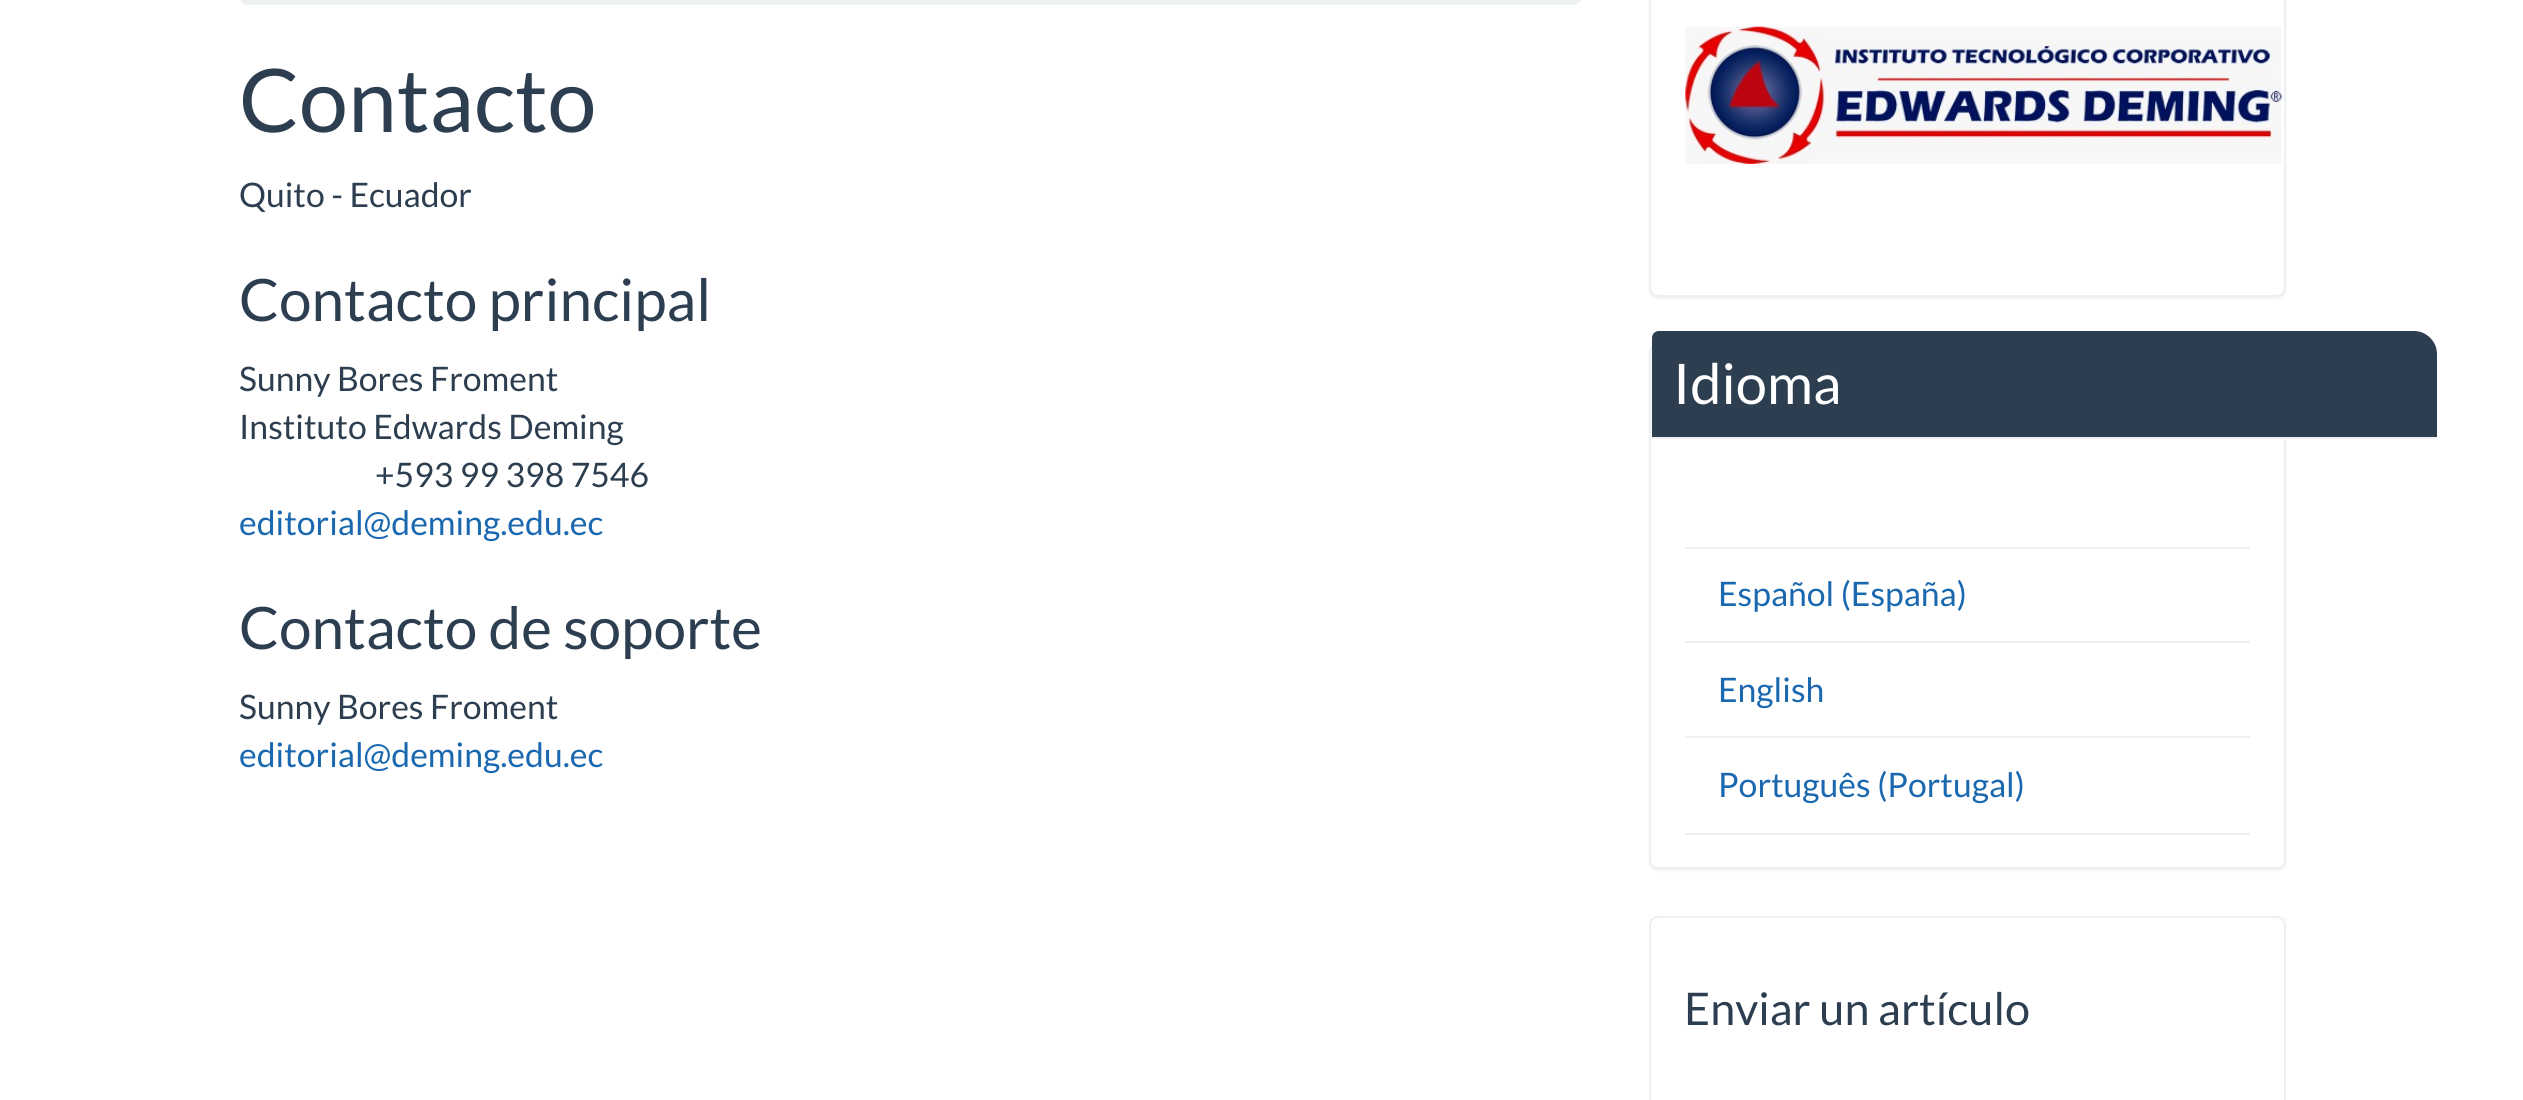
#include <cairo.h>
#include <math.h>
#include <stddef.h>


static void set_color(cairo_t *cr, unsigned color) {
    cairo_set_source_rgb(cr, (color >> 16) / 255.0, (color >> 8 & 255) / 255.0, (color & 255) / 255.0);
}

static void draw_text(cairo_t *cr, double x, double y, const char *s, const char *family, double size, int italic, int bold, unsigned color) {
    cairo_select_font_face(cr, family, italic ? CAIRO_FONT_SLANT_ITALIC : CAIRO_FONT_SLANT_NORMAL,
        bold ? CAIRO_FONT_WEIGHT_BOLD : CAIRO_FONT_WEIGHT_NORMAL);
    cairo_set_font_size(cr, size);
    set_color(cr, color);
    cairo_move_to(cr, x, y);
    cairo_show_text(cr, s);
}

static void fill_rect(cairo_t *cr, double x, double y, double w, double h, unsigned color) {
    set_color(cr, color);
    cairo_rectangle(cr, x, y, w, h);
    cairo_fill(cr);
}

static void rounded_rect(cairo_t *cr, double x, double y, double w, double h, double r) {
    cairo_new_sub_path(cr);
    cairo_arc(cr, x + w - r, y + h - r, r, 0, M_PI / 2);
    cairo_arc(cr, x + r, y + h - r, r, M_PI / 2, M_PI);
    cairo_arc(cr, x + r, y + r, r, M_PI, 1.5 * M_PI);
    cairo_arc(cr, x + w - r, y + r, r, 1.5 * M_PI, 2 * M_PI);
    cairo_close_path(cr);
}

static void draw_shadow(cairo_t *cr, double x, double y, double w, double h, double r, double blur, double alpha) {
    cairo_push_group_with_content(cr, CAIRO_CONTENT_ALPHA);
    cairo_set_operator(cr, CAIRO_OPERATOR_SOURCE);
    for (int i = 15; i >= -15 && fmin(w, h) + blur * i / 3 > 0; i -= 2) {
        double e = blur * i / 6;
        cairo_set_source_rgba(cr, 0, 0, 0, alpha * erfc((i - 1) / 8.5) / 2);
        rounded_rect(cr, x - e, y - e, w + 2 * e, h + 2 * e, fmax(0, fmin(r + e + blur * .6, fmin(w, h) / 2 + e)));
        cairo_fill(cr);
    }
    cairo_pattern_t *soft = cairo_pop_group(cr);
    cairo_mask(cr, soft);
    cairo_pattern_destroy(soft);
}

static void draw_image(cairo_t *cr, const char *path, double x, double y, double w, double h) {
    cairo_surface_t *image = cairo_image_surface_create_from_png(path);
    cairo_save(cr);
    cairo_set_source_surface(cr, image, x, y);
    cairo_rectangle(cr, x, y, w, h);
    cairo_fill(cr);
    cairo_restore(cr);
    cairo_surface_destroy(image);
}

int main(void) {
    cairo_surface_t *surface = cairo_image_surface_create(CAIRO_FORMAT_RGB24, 2523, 1100);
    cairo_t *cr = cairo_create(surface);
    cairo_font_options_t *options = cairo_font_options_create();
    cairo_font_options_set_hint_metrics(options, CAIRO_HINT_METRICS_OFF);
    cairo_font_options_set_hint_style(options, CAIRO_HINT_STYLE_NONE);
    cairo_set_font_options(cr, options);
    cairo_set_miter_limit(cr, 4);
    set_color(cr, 0xFFFFFF);
    cairo_paint(cr);
    set_color(cr, 0xECF0F1);
    rounded_rect(cr, 239, -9, 1343, 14, 9);
    cairo_fill(cr);
    draw_text(cr, 239, 132, "Contacto", "Lato", 87.75, 0, 0, 0x2C3E50);
    draw_text(cr, 239, 207, "Quito - Ecuador", "Lato", 33.75, 0, 0, 0x2C3E50);
    draw_text(cr, 239, 321, "Contacto principal", "Lato", 58.5, 0, 0, 0x2C3E50);
    draw_text(cr, 239, 391, "Sunny Bores Froment", "Lato", 33.75, 0, 0, 0x2C3E50);
    draw_text(cr, 239, 439, "Instituto Edwards Deming", "Lato", 33.75, 0, 0, 0x2C3E50);
    draw_text(cr, 375, 487, "+593 99 398 7546", "Lato", 33.75, 0, 0, 0x2C3E50);
    draw_text(cr, 239, 535, "editorial@deming.edu.ec", "Lato", 33.75, 0, 0, 0x1A68AF);
    draw_text(cr, 239, 649, "Contacto de soporte", "Lato", 58.5, 0, 0, 0x2C3E50);
    draw_text(cr, 239, 719, "Sunny Bores Froment", "Lato", 33.75, 0, 0, 0x2C3E50);
    draw_text(cr, 239, 767, "editorial@deming.edu.ec", "Lato", 33.75, 0, 0, 0x1A68AF);
    set_color(cr, 0x000000);
    draw_shadow(cr, 1649, -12, 637, 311, 9, 1, 0.05);
    set_color(cr, 0xFFFFFF);
    rounded_rect(cr, 1650, -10, 635, 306, 8);
    cairo_fill_preserve(cr);
    set_color(cr, 0xECF0F1);
    cairo_stroke(cr);
    draw_image(cr, "assets/img1.png", 1685, 26, 597, 138);
    set_color(cr, 0x000000);
    draw_shadow(cr, 1649, 347, 637, 524, 9, 1, 0.05);
    set_color(cr, 0xFFFFFF);
    rounded_rect(cr, 1650, 345, 635, 523, 8);
    cairo_fill_preserve(cr);
    set_color(cr, 0xECF0F1);
    cairo_stroke(cr);
    set_color(cr, 0x2C3E50);
    cairo_new_path(cr);
    cairo_move_to(cr, 1659, 331);
    cairo_line_to(cr, 2414, 331);
    cairo_curve_to(cr, 2426.5, 331, 2437, 341.5, 2437, 354);
    cairo_line_to(cr, 2437, 439);
    cairo_line_to(cr, 1652, 439);
    cairo_line_to(cr, 1652, 338);
    cairo_curve_to(cr, 1652, 334, 1655, 331, 1659, 331);
    cairo_close_path(cr);
    cairo_fill(cr);
    fill_rect(cr, 1652, 437, 785, 2, 0xECF0F1);
    draw_text(cr, 1673, 404, "Idioma", "Lato", 56, 0, 0, 0xFFFFFF);
    fill_rect(cr, 1685, 547, 565, 2, 0xECF0F1);
    fill_rect(cr, 1685, 641, 565, 2, 0xECF0F1);
    draw_text(cr, 1718, 606, "Español (España)", "Lato", 33.75, 0, 0, 0x1A68AF);
    fill_rect(cr, 1685, 736, 565, 2, 0xECF0F1);
    draw_text(cr, 1718, 702, "English", "Lato", 33.75, 0, 0, 0x1A68AF);
    fill_rect(cr, 1685, 833, 565, 2, 0xECF0F1);
    draw_text(cr, 1718, 797, "Português (Portugal)", "Lato", 33.75, 0, 0, 0x1A68AF);
    rounded_rect(cr, 1650, 917, 635, 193, 8);
    set_color(cr, 0xECF0F1);
    cairo_stroke(cr);
    draw_text(cr, 1684, 1025, "Enviar un artículo", "Lato", 45, 0, 0, 0x2C3E50);
    cairo_surface_write_to_png(surface, "output.png");
    cairo_font_options_destroy(options);
    cairo_destroy(cr);
    cairo_surface_destroy(surface);
    return 0;
}
